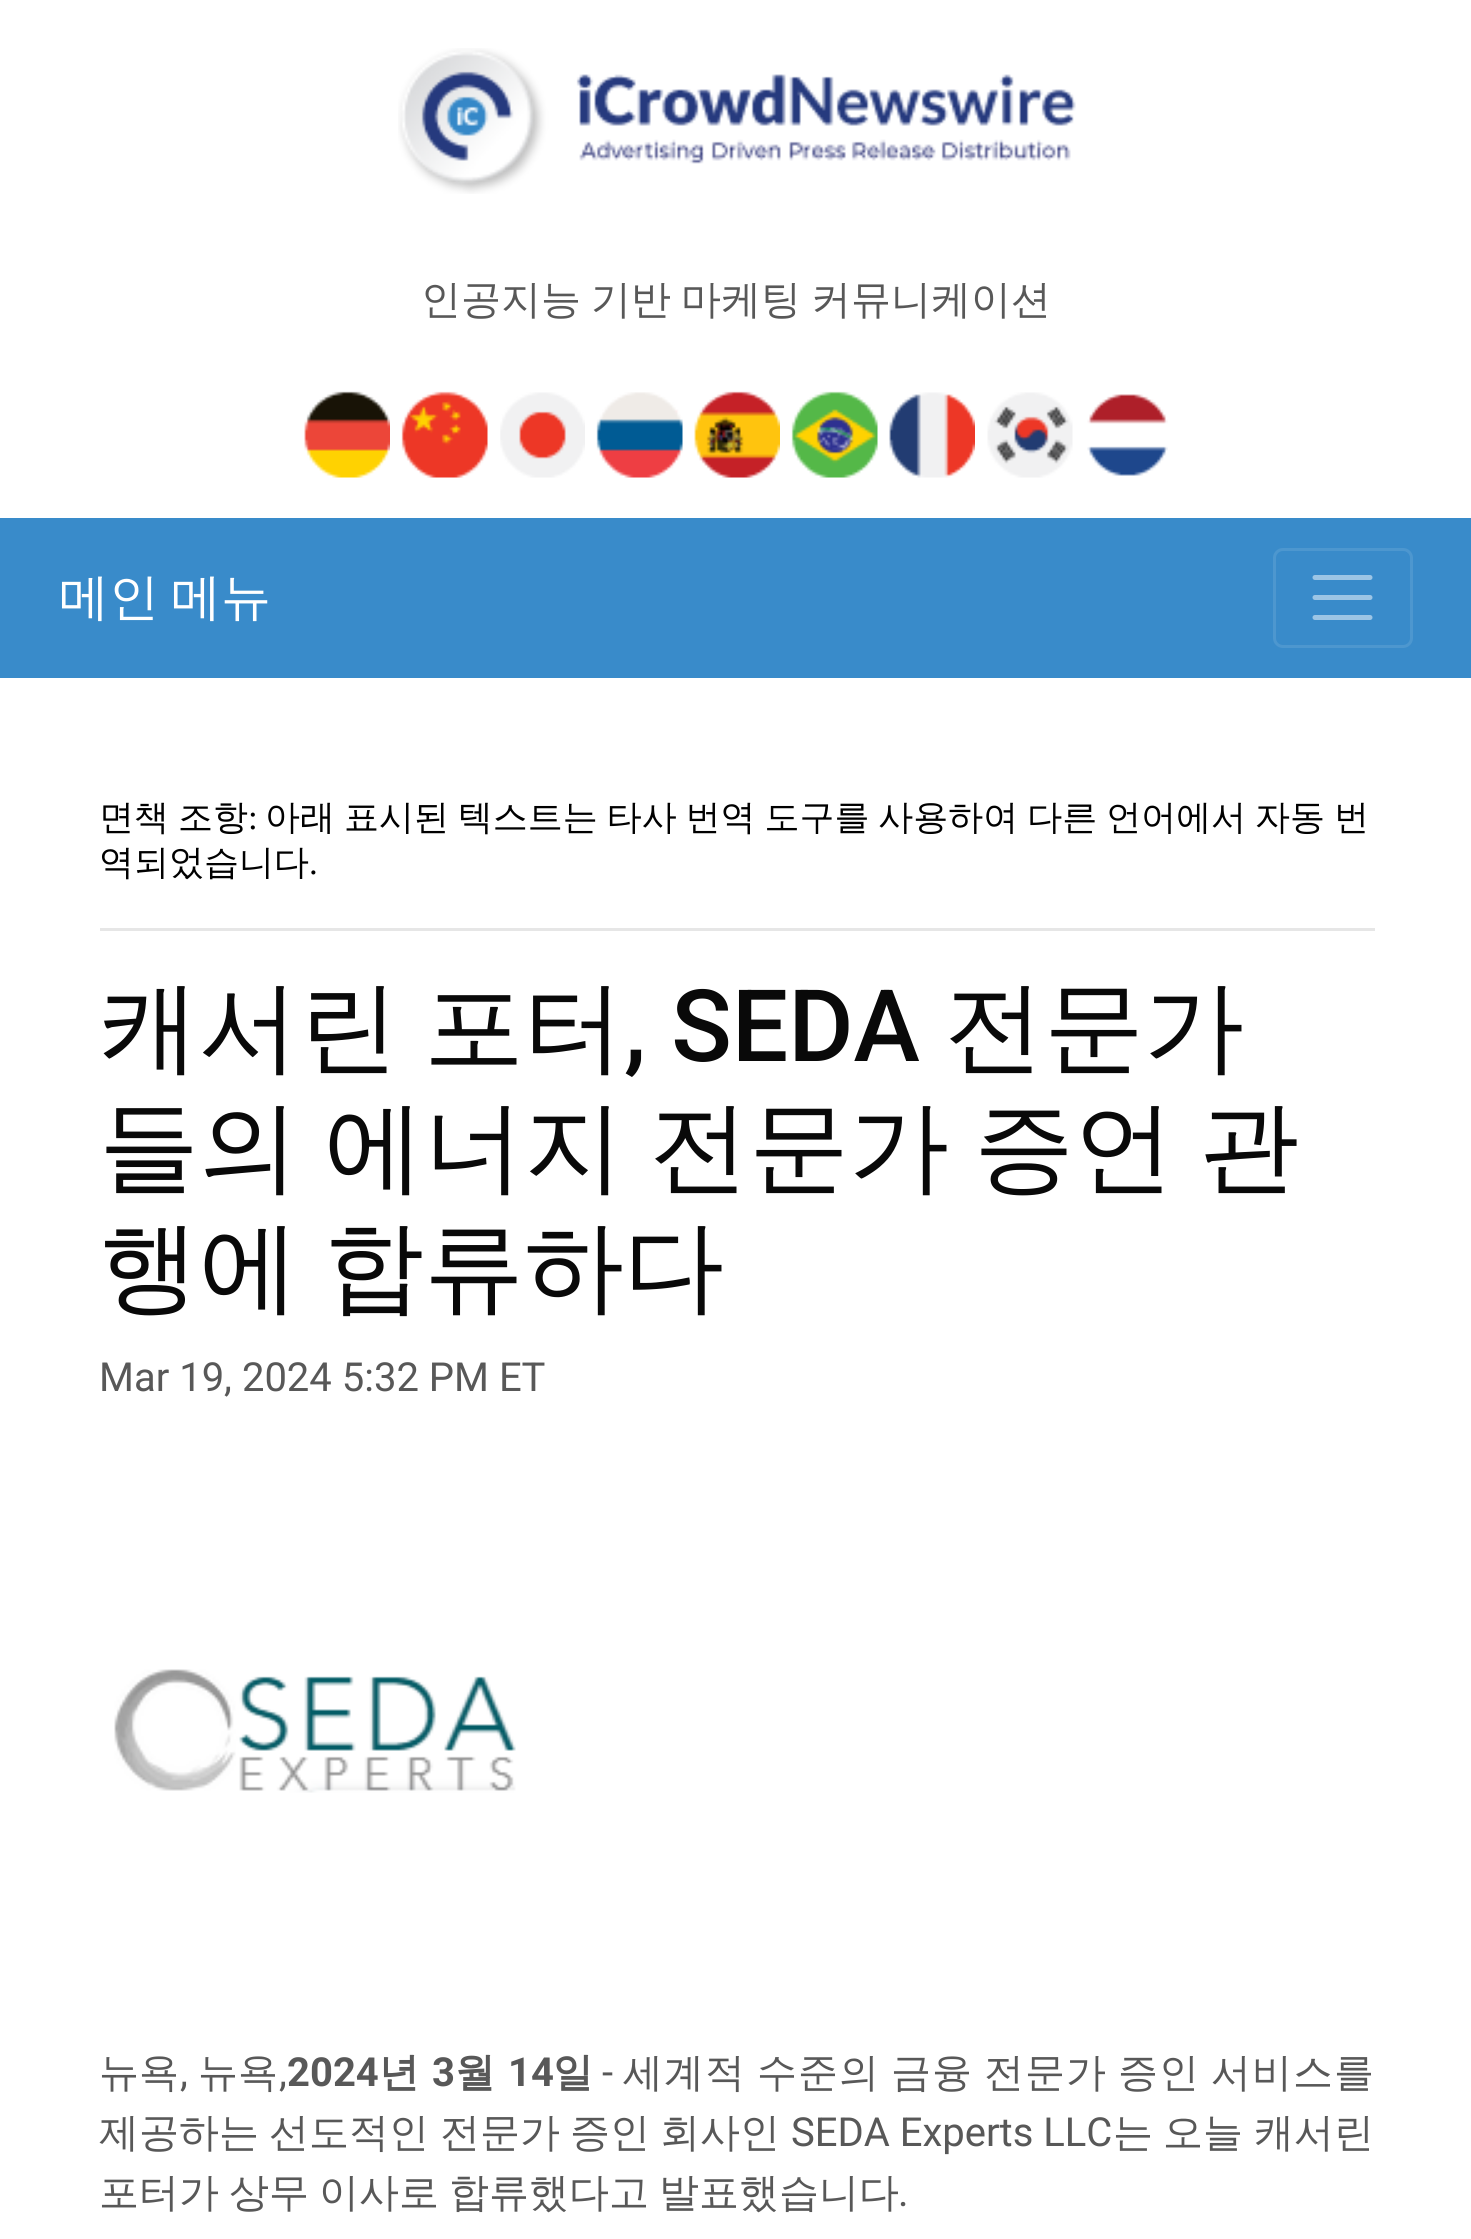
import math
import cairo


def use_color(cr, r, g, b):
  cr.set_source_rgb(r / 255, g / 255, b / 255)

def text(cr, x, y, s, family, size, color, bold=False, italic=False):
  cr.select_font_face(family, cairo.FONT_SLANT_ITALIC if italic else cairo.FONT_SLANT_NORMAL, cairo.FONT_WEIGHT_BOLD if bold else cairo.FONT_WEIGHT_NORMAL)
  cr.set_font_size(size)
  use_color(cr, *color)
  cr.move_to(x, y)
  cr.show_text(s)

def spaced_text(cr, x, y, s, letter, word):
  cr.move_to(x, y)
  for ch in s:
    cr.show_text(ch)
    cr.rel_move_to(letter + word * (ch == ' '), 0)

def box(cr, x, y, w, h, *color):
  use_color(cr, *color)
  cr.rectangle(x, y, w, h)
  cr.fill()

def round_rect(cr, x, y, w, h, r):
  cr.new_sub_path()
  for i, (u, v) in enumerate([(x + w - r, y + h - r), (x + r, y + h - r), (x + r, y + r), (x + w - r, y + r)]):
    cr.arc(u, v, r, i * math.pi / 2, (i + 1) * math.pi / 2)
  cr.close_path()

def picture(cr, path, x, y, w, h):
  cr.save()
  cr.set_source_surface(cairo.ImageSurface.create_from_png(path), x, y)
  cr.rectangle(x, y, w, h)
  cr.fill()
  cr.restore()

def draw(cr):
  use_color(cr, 255, 255, 255)
  cr.paint()
  picture(cr, "img_01.png", 398, 48, 678, 146)
  picture(cr, "img_02.png", 304, 391, 86, 87)
  picture(cr, "img_03.png", 401, 391, 87, 87)
  picture(cr, "img_04.png", 500, 392, 85, 86)
  picture(cr, "img_05.png", 596, 392, 87, 86)
  picture(cr, "img_06.png", 694, 391, 86, 87)
  picture(cr, "img_07.png", 791, 391, 87, 87)
  picture(cr, "img_08.png", 889, 392, 86, 86)
  picture(cr, "img_09.png", 987, 392, 86, 86)
  picture(cr, "img_10.png", 1087, 394, 81, 82)
  box(cr, 0, 518, 1471, 160, 57, 139, 202)
  round_rect(cr, 1274.5, 549.5, 137, 97, 8.5)
  use_color(cr, 77, 151, 207)
  cr.set_line_width(3)
  cr.stroke()
  cr.new_path()
  cr.move_to(1315, 577.5)
  cr.line_to(1370, 577.5)
  cr.move_to(1315, 597.5)
  cr.line_to(1370, 597.5)
  cr.move_to(1315, 617.5)
  cr.line_to(1370, 617.5)
  use_color(cr, 156, 197, 229)
  cr.set_line_width(5)
  cr.set_line_cap(cairo.LINE_CAP_ROUND)
  cr.stroke()
  box(cr, 100, 928, 1275, 3, 230, 230, 230)
  picture(cr, "img_11.png", 114, 1669, 402, 124)
  cr.select_font_face("WenQuanYi Zen Hei Medium")
  cr.set_font_size(40)
  use_color(cr, 88, 88, 88)
  spaced_text(cr, 421, 313, "인공지능 기반 마케팅 커뮤니케이션", 0, -2)
  cr.set_font_size(50)
  use_color(cr, 255, 255, 255)
  spaced_text(cr, 59, 614, "메인 메뉴", 0, -3)
  cr.set_font_size(35)
  use_color(cr, 0, 0, 0)
  spaced_text(cr, 99, 829, "면책 조항", 0, -1.6)
  text(cr, 248, 829, ":", "Liberation Serif", 35, (0, 0, 0))
  cr.select_font_face("WenQuanYi Zen Hei Medium")
  spaced_text(cr, 265, 829, "아래 표시된 텍스트는 타사 번역 도구를 사용하여 다른 언어에서 자동 번", 0, -1.6)
  text(cr, 99, 874, "역되었습니다", "WenQuanYi Zen Hei Medium", 35, (0, 0, 0))
  text(cr, 309, 874, ".", "Liberation Serif", 35, (0, 0, 0))
  text(cr, 99, 1061, "캐서린", "WenQuanYi Zen Hei Medium", 100, (9, 9, 9))
  text(cr, 424, 1061, "포터", "WenQuanYi Zen Hei Medium", 100, (9, 9, 9))
  text(cr, 624, 1061, ", SEDA", "Roboto Medium", 100, (9, 9, 9))
  text(cr, 944, 1061, "전문가", "WenQuanYi Zen Hei Medium", 100, (9, 9, 9))
  spaced_text(cr, 99, 1181, "들의 에너지 전문가 증언 관", 0, -5)
  spaced_text(cr, 99, 1301, "행에 합류하다", 0, -5)
  text(cr, 99, 1391, "Mar 19, 2024 5:32 PM ET", "Roboto", 40, (88, 88, 88))
  text(cr, 99, 2086, "뉴욕", "WenQuanYi Zen Hei Medium", 40, (88, 88, 88))
  text(cr, 198, 2086, "뉴욕", "WenQuanYi Zen Hei Medium", 40, (88, 88, 88))
  text(cr, 287, 2086, "2024", "Roboto", 40, (88, 88, 88), bold=True)
  text(cr, 379, 2086, "년", "WenQuanYi Zen Hei", 40, (88, 88, 88), bold=True)
  text(cr, 432, 2086, "3", "Roboto", 40, (88, 88, 88), bold=True)
  text(cr, 455, 2086, "월", "WenQuanYi Zen Hei", 40, (88, 88, 88), bold=True)
  text(cr, 508, 2086, "14", "Roboto", 40, (88, 88, 88), bold=True)
  text(cr, 553, 2086, "일", "WenQuanYi Zen Hei", 40, (88, 88, 88), bold=True)
  cr.select_font_face("Roboto")
  spaced_text(cr, 602, 2086, "-", 1, 0)
  cr.select_font_face("WenQuanYi Zen Hei Medium")
  spaced_text(cr, 623, 2086, "세계적 수준의 금융 전문가 증인 서비스를", 1, -2)
  text(cr, 180, 2086, ",", "Roboto", 40, (88, 88, 88))
  text(cr, 279, 2086, ",", "Roboto", 40, (88, 88, 88))
  text(cr, 99, 2146, "제공하는", "WenQuanYi Zen Hei Medium", 40, (88, 88, 88))
  text(cr, 269, 2146, "선도적인", "WenQuanYi Zen Hei Medium", 40, (88, 88, 88))
  text(cr, 440, 2146, "전문가", "WenQuanYi Zen Hei Medium", 40, (88, 88, 88))
  text(cr, 570, 2146, "증인", "WenQuanYi Zen Hei Medium", 40, (88, 88, 88))
  text(cr, 660, 2146, "회사인", "WenQuanYi Zen Hei Medium", 40, (88, 88, 88))
  text(cr, 791, 2146, "SEDA Experts LLC", "Roboto", 40, (88, 88, 88))
  text(cr, 1113, 2146, "는", "WenQuanYi Zen Hei Medium", 40, (88, 88, 88))
  text(cr, 1163, 2146, "오늘", "WenQuanYi Zen Hei Medium", 40, (88, 88, 88))
  text(cr, 1254, 2146, "캐서린", "WenQuanYi Zen Hei Medium", 40, (88, 88, 88))
  spaced_text(cr, 99, 2206, "포터가 상무 이사로 합류했다고 발표했습니다", 0, -2)
  text(cr, 898, 2206, ".", "Roboto", 40, (88, 88, 88))


surface = cairo.ImageSurface(cairo.FORMAT_RGB24, 1471, 2239)
cr = cairo.Context(surface)
options = cairo.FontOptions()
options.set_hint_metrics(cairo.HINT_METRICS_OFF)
options.set_hint_style(cairo.HINT_STYLE_NONE)
cr.set_font_options(options)
cr.set_miter_limit(4)
draw(cr)
surface.write_to_png("out.png")
